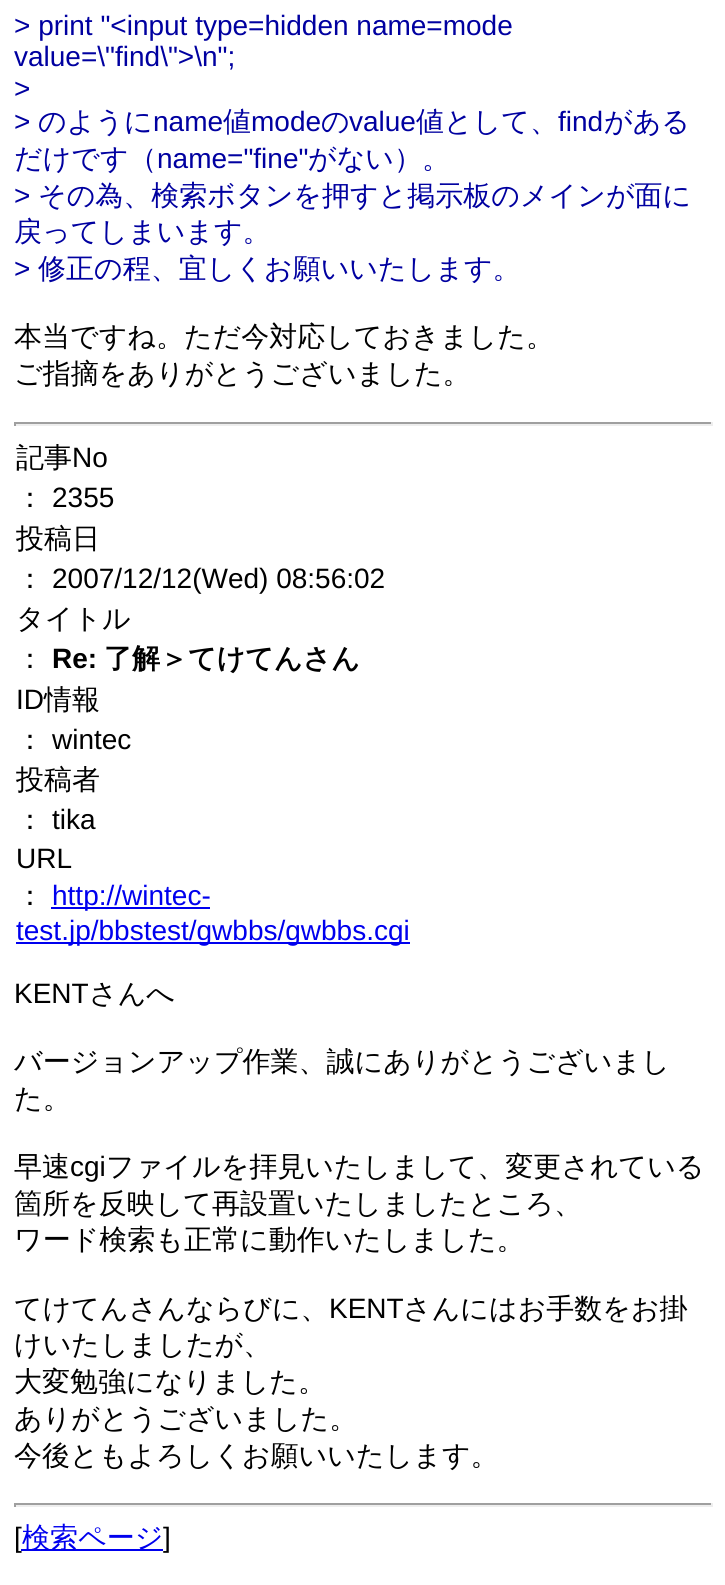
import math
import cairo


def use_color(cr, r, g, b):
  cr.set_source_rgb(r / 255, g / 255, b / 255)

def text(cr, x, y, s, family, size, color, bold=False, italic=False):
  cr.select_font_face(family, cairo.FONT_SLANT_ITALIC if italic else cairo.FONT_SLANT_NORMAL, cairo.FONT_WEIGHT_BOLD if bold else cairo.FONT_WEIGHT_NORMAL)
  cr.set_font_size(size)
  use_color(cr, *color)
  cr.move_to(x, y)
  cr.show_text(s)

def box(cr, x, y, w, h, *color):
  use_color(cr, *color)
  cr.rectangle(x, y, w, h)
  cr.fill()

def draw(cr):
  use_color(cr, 255, 255, 255)
  cr.paint()
  box(cr, 14, 422, 698, 2, 159, 159, 159)
  box(cr, 711, 422, 2, 4, 238, 238, 238)
  box(cr, 14, 424, 698, 2, 238, 238, 238)
  box(cr, 14, 422, 2, 4, 159, 159, 159)
  box(cr, 51, 907, 159, 2, 0, 0, 238)
  box(cr, 16, 942, 394, 2, 0, 0, 238)
  box(cr, 14, 1503, 698, 2, 159, 159, 159)
  box(cr, 711, 1503, 2, 4, 238, 238, 238)
  box(cr, 14, 1505, 698, 2, 238, 238, 238)
  box(cr, 14, 1503, 2, 4, 159, 159, 159)
  text(cr, 14, 35, "> print \"<input type=hidden name=mode", "Liberation Sans", 28, (0, 0, 160))
  text(cr, 14, 66, "value=\\\"find\\\">\\n\";", "Liberation Sans", 28, (0, 0, 160))
  text(cr, 14, 98, ">", "Liberation Sans", 28, (0, 0, 160))
  text(cr, 14, 131, ">", "Liberation Sans", 28, (0, 0, 160))
  text(cr, 38, 131, "のように", "WenQuanYi Zen Hei Medium", 28, (0, 0, 160))
  text(cr, 153, 131, "name", "Liberation Sans", 28, (0, 0, 160))
  text(cr, 223, 131, "値", "WenQuanYi Zen Hei Medium", 28, (0, 0, 160))
  text(cr, 251, 131, "mode", "Liberation Sans", 28, (0, 0, 160))
  text(cr, 321, 131, "の", "WenQuanYi Zen Hei Medium", 28, (0, 0, 160))
  text(cr, 349, 131, "value", "Liberation Sans", 28, (0, 0, 160))
  text(cr, 416, 131, "値として、", "WenQuanYi Zen Hei Medium", 28, (0, 0, 160))
  text(cr, 558, 131, "find", "Liberation Sans", 28, (0, 0, 160))
  text(cr, 604, 131, "がある", "WenQuanYi Zen Hei Medium", 28, (0, 0, 160))
  text(cr, 14, 168, "だけです（", "WenQuanYi Zen Hei Medium", 28, (0, 0, 160))
  text(cr, 157, 168, "name=\"fine\"", "Liberation Sans", 28, (0, 0, 160))
  text(cr, 308, 168, "がない）。", "WenQuanYi Zen Hei Medium", 28, (0, 0, 160))
  text(cr, 14, 205, ">", "Liberation Sans", 28, (0, 0, 160))
  text(cr, 38, 205, "その為、検索ボタンを押すと掲示板のメインが面に", "WenQuanYi Zen Hei Medium", 28, (0, 0, 160))
  text(cr, 14, 241, "戻ってしまいます。", "WenQuanYi Zen Hei Medium", 28, (0, 0, 160))
  text(cr, 14, 278, ">", "Liberation Sans", 28, (0, 0, 160))
  text(cr, 38, 278, "修正の程、宜しくお願いいたします。", "WenQuanYi Zen Hei Medium", 28, (0, 0, 160))
  text(cr, 14, 346, "本当ですね。ただ今対応しておきました。", "WenQuanYi Zen Hei Medium", 28, (0, 0, 0))
  text(cr, 14, 383, "ご指摘をありがとうございました。", "WenQuanYi Zen Hei Medium", 28, (0, 0, 0))
  text(cr, 16, 467, "記事", "WenQuanYi Zen Hei Medium", 28, (0, 0, 0))
  text(cr, 72, 467, "No", "Liberation Sans", 28, (0, 0, 0))
  text(cr, 16, 507, "：", "WenQuanYi Zen Hei Medium", 28, (0, 0, 0))
  text(cr, 52, 507, "2355", "Liberation Sans", 28, (0, 0, 0))
  text(cr, 16, 548, "投稿日", "WenQuanYi Zen Hei Medium", 28, (0, 0, 0))
  text(cr, 16, 588, "：", "WenQuanYi Zen Hei Medium", 28, (0, 0, 0))
  text(cr, 52, 588, "2007/12/12(Wed) 08:56:02", "Liberation Sans", 28, (0, 0, 0))
  text(cr, 16, 628, "タイトル", "WenQuanYi Zen Hei Medium", 28, (0, 0, 0))
  text(cr, 16, 668, "：", "WenQuanYi Zen Hei Medium", 28, (0, 0, 0))
  text(cr, 52, 668, "Re:", "Liberation Sans", 28, (0, 0, 0), bold=True)
  text(cr, 104, 668, "了解＞てけてんさん", "WenQuanYi Zen Hei", 28, (0, 0, 0), bold=True)
  text(cr, 16, 709, "ID", "Liberation Sans", 28, (0, 0, 0))
  text(cr, 44, 709, "情報", "WenQuanYi Zen Hei Medium", 28, (0, 0, 0))
  text(cr, 16, 749, "：", "WenQuanYi Zen Hei Medium", 28, (0, 0, 0))
  text(cr, 52, 749, "wintec", "Liberation Sans", 28, (0, 0, 0))
  text(cr, 16, 789, "投稿者", "WenQuanYi Zen Hei Medium", 28, (0, 0, 0))
  text(cr, 16, 829, "：", "WenQuanYi Zen Hei Medium", 28, (0, 0, 0))
  text(cr, 52, 829, "tika", "Liberation Sans", 28, (0, 0, 0))
  text(cr, 16, 868, "URL", "Liberation Sans", 28, (0, 0, 0))
  text(cr, 16, 905, "：", "WenQuanYi Zen Hei Medium", 28, (0, 0, 0))
  text(cr, 52, 905, "http://wintec-", "Liberation Sans", 28, (0, 0, 238))
  text(cr, 16, 940, "test.jp/bbstest/gwbbs/gwbbs.cgi", "Liberation Sans", 28, (0, 0, 238))
  text(cr, 14, 1003, "KENT", "Liberation Sans", 28, (0, 0, 0))
  text(cr, 89, 1003, "さんへ", "WenQuanYi Zen Hei Medium", 28, (0, 0, 0))
  text(cr, 14, 1071, "バージョンアップ作業、誠にありがとうございまし", "WenQuanYi Zen Hei Medium", 28, (0, 0, 0))
  text(cr, 14, 1108, "た。", "WenQuanYi Zen Hei Medium", 28, (0, 0, 0))
  text(cr, 14, 1176, "早速", "WenQuanYi Zen Hei Medium", 28, (0, 0, 0))
  text(cr, 70, 1176, "cgi", "Liberation Sans", 28, (0, 0, 0))
  text(cr, 106, 1176, "ファイルを拝見いたしまして、変更されている", "WenQuanYi Zen Hei Medium", 28, (0, 0, 0))
  text(cr, 14, 1213, "箇所を反映して再設置いたしましたところ、", "WenQuanYi Zen Hei Medium", 28, (0, 0, 0))
  text(cr, 14, 1249, "ワード検索も正常に動作いたしました。", "WenQuanYi Zen Hei Medium", 28, (0, 0, 0))
  text(cr, 14, 1318, "てけてんさんならびに、", "WenQuanYi Zen Hei Medium", 28, (0, 0, 0))
  text(cr, 329, 1318, "KENT", "Liberation Sans", 28, (0, 0, 0))
  text(cr, 403, 1318, "さんにはお手数をお掛", "WenQuanYi Zen Hei Medium", 28, (0, 0, 0))
  text(cr, 14, 1354, "けいたしましたが、", "WenQuanYi Zen Hei Medium", 28, (0, 0, 0))
  text(cr, 14, 1391, "大変勉強になりました。", "WenQuanYi Zen Hei Medium", 28, (0, 0, 0))
  text(cr, 14, 1428, "ありがとうございました。", "WenQuanYi Zen Hei Medium", 28, (0, 0, 0))
  text(cr, 14, 1465, "今後ともよろしくお願いいたします。", "WenQuanYi Zen Hei Medium", 28, (0, 0, 0))
  text(cr, 14, 1547, "[", "Liberation Sans", 28, (0, 0, 0))
  box(cr, 21, 1549, 142, 2, 0, 0, 238)
  text(cr, 22, 1547, "検索ページ", "WenQuanYi Zen Hei Medium", 28, (0, 0, 238))
  text(cr, 163, 1547, "]", "Liberation Sans", 28, (0, 0, 0))


surface = cairo.ImageSurface(cairo.FORMAT_RGB24, 725, 1585)
cr = cairo.Context(surface)
options = cairo.FontOptions()
options.set_hint_metrics(cairo.HINT_METRICS_OFF)
options.set_hint_style(cairo.HINT_STYLE_NONE)
cr.set_font_options(options)
cr.set_miter_limit(4)
draw(cr)
surface.write_to_png("out.png")
